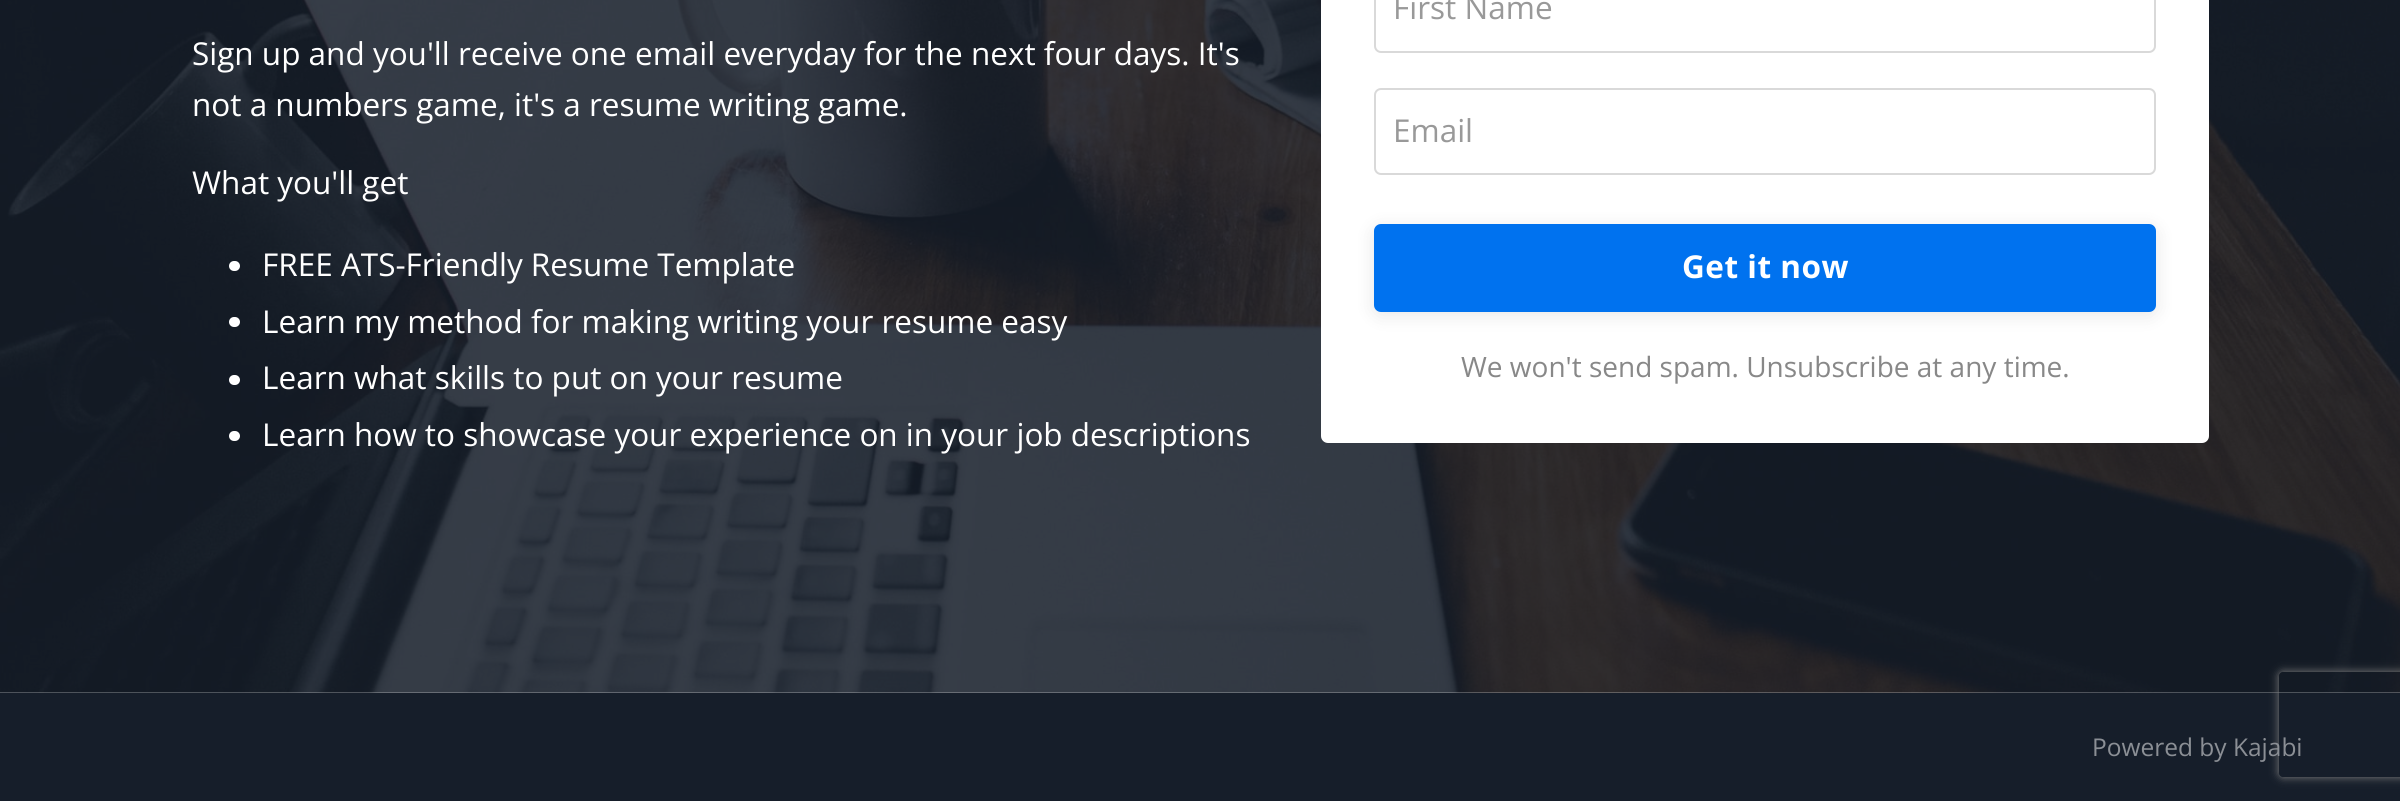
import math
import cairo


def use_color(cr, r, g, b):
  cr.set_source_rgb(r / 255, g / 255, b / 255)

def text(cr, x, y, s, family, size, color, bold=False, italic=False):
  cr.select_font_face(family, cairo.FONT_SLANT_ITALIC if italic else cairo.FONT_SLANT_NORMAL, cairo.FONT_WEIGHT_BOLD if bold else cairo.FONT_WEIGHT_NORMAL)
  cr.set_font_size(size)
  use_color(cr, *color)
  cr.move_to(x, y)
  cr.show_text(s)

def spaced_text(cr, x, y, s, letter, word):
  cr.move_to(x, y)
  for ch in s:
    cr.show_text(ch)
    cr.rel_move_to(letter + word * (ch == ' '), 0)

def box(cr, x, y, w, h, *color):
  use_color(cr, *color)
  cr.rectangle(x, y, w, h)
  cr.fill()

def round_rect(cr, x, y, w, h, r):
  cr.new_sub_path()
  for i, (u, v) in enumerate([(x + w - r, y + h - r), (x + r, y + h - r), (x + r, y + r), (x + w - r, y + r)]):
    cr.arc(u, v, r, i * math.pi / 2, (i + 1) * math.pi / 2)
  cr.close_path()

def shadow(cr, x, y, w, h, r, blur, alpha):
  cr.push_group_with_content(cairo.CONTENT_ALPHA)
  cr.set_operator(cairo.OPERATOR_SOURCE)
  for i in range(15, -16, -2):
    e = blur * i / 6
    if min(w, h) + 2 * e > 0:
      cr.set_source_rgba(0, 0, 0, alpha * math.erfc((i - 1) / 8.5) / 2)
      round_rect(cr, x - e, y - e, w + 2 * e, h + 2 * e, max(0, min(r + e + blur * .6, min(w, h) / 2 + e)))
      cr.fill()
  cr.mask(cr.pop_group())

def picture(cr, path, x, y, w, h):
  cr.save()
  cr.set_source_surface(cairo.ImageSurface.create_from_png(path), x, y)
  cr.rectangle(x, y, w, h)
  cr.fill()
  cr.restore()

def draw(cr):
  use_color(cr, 255, 255, 255)
  cr.paint()
  picture(cr, "img_01.png", 0, 0, 2400, 693)
  use_color(cr, 255, 255, 255)
  round_rect(cr, 229, 261, 11, 10, 5)
  cr.fill()
  round_rect(cr, 229, 317, 11, 10, 5)
  cr.fill()
  round_rect(cr, 229, 375, 11, 10, 5)
  cr.fill()
  round_rect(cr, 229, 431, 11, 10, 5)
  cr.fill()
  round_rect(cr, 1321, -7, 888, 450, 7)
  cr.fill()
  round_rect(cr, 1375, -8, 780, 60, 6)
  use_color(cr, 217, 217, 217)
  cr.stroke()
  round_rect(cr, 1375, 89, 780, 85, 6)
  cr.stroke()
  use_color(cr, 0, 0, 0)
  shadow(cr, 1374, 228, 782, 87, 7, 9, 0.1)
  use_color(cr, 0, 114, 239)
  round_rect(cr, 1376, 226, 778, 84, 5)
  cr.fill_preserve()
  cr.set_line_width(4)
  cr.stroke()
  box(cr, 0, 693, 2400, 108, 22, 30, 42)
  cr.save()
  cr.set_fill_rule(cairo.FILL_RULE_EVEN_ODD)
  cr.new_path()
  cr.move_to(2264, 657)
  cr.line_to(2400, 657)
  cr.line_to(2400, 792)
  cr.line_to(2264, 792)
  cr.close_path()
  cr.move_to(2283, 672)
  cr.line_to(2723, 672)
  cr.curve_to(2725, 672, 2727, 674, 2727, 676)
  cr.line_to(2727, 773)
  cr.curve_to(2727, 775, 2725, 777, 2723, 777)
  cr.line_to(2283, 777)
  cr.curve_to(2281, 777, 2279, 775, 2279, 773)
  cr.line_to(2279, 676)
  cr.curve_to(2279, 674, 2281, 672, 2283, 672)
  cr.close_path()
  cr.clip()
  use_color(cr, 128, 128, 128)
  shadow(cr, 2279, 672, 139, 105, 4, 4.5, 1)
  cr.restore()
  text(cr, 192, 65, "Sign up and you'll receive one email everyday for the next four days. It's", "Open Sans", 31.5, (255, 255, 255))
  text(cr, 192, 116, "not a numbers game, it's a resume writing game.", "Open Sans", 31.5, (255, 255, 255))
  text(cr, 192, 194, "What you'll get", "Open Sans", 31.5, (255, 255, 255))
  text(cr, 262, 276, "FREE ATS-Friendly Resume Template", "Open Sans", 31.5, (255, 255, 255))
  text(cr, 262, 333, "Learn my method for making writing your resume easy", "Open Sans", 31.5, (255, 255, 255))
  text(cr, 262, 389, "Learn what skills to put on your resume", "Open Sans", 31.5, (255, 255, 255))
  text(cr, 262, 446, "Learn how to showcase your experience on in your job descriptions", "Open Sans", 31.5, (255, 255, 255))
  text(cr, 1393, 19, "First Name", "Open Sans", 31.5, (153, 153, 153))
  text(cr, 1393, 142, "Email", "Open Sans", 31.5, (153, 153, 153))
  cr.select_font_face("Open Sans", cairo.FONT_SLANT_NORMAL, cairo.FONT_WEIGHT_BOLD)
  use_color(cr, 255, 255, 255)
  spaced_text(cr, 1682, 278, "Get it now", 0.5, 0)
  text(cr, 1461, 377, "We won't send spam. Unsubscribe at any time.", "Open Sans", 28, (136, 136, 136))
  text(cr, 2092, 756, "Powered by Kajabi", "Open Sans", 24.5, (139, 143, 149))


surface = cairo.ImageSurface(cairo.FORMAT_RGB24, 2400, 801)
cr = cairo.Context(surface)
options = cairo.FontOptions()
options.set_hint_metrics(cairo.HINT_METRICS_OFF)
options.set_hint_style(cairo.HINT_STYLE_NONE)
cr.set_font_options(options)
cr.set_miter_limit(4)
draw(cr)
surface.write_to_png("out.png")
